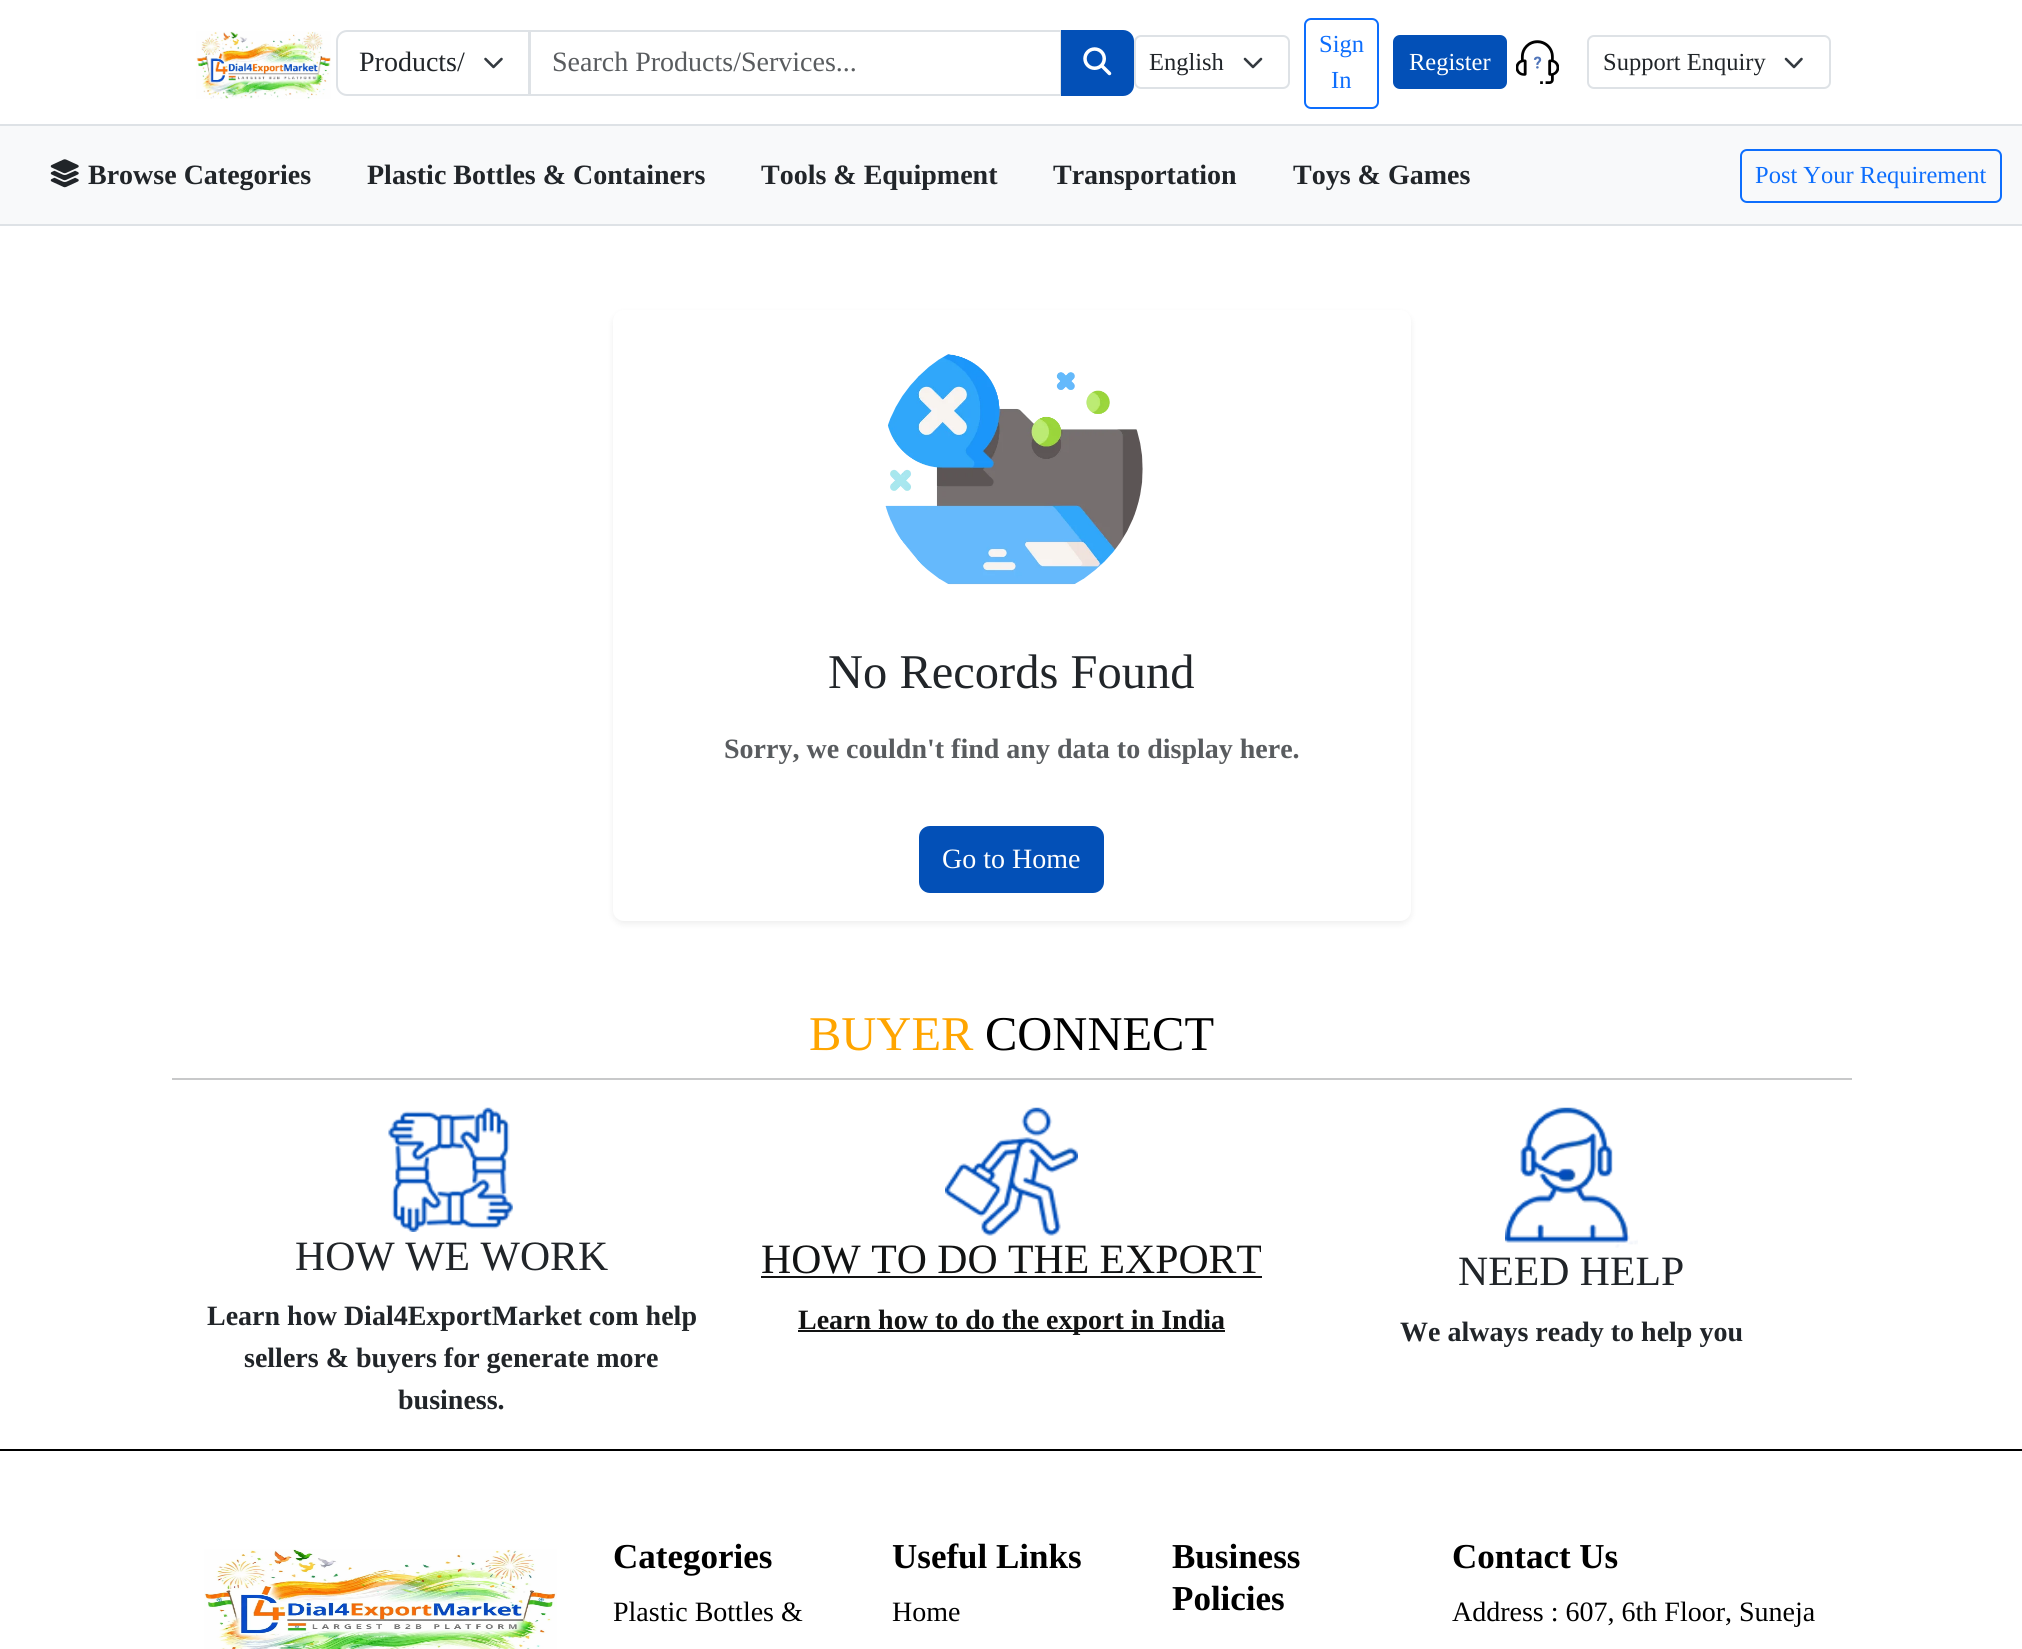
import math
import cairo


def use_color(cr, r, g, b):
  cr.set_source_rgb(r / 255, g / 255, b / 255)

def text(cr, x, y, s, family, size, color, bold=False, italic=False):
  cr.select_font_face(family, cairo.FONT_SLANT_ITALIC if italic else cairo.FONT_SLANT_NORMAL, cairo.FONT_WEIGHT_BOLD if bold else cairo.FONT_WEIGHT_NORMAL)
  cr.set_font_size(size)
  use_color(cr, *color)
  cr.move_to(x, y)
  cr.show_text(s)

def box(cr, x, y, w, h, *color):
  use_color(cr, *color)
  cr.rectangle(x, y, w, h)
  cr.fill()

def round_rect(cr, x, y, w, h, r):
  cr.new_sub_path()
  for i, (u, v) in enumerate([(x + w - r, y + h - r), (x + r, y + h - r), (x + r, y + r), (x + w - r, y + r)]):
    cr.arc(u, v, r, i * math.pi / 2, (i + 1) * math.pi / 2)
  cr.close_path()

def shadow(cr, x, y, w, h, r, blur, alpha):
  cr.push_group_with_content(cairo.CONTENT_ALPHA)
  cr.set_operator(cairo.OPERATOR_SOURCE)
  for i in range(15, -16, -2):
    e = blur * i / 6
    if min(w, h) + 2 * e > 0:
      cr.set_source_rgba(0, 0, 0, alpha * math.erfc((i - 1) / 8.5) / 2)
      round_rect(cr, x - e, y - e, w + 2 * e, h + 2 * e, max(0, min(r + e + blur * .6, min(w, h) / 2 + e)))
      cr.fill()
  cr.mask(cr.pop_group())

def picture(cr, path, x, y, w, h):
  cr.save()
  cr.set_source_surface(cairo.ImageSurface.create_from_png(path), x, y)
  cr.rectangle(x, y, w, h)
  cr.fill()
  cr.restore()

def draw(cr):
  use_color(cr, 255, 255, 255)
  cr.paint()
  box(cr, 0, 224, 2022, 2, 222, 226, 230)
  picture(cr, "img_01.png", 196, 31, 135, 68)
  cr.new_path()
  cr.move_to(485.5, 59)
  cr.line_to(493.5, 67)
  cr.line_to(501.5, 59)
  use_color(cr, 52, 58, 64)
  cr.set_line_width(2.6)
  cr.set_line_cap(cairo.LINE_CAP_ROUND)
  cr.set_line_join(cairo.LINE_JOIN_ROUND)
  cr.stroke()
  cr.new_path()
  cr.move_to(347, 31)
  cr.line_to(529, 31)
  cr.line_to(529, 95)
  cr.line_to(347, 95)
  cr.curve_to(341.5, 95, 337, 90.5, 337, 85)
  cr.line_to(337, 41)
  cr.curve_to(337, 35.5, 341.5, 31, 347, 31)
  cr.close_path()
  use_color(cr, 222, 226, 230)
  cr.set_line_width(2)
  cr.set_line_cap(cairo.LINE_CAP_BUTT)
  cr.set_line_join(cairo.LINE_JOIN_MITER)
  cr.stroke()
  cr.rectangle(530, 31, 531, 64)
  cr.stroke()
  use_color(cr, 3, 80, 183)
  cr.new_path()
  cr.move_to(1062, 31)
  cr.line_to(1123, 31)
  cr.curve_to(1128.5, 31, 1133, 35.5, 1133, 41)
  cr.line_to(1133, 85)
  cr.curve_to(1133, 90.5, 1128.5, 95, 1123, 95)
  cr.line_to(1062, 95)
  cr.close_path()
  cr.fill_preserve()
  cr.stroke()
  picture(cr, "img_02.png", 1083, 47, 29, 29)
  cr.new_path()
  cr.move_to(1245, 59)
  cr.line_to(1253, 67)
  cr.line_to(1261, 59)
  use_color(cr, 52, 58, 64)
  cr.set_line_width(2.6)
  cr.set_line_cap(cairo.LINE_CAP_ROUND)
  cr.set_line_join(cairo.LINE_JOIN_ROUND)
  cr.stroke()
  round_rect(cr, 1135, 36, 154, 52, 6)
  use_color(cr, 222, 226, 230)
  cr.set_line_width(2)
  cr.set_line_cap(cairo.LINE_CAP_BUTT)
  cr.set_line_join(cairo.LINE_JOIN_MITER)
  cr.stroke()
  round_rect(cr, 1305, 19, 73, 89, 6)
  use_color(cr, 13, 110, 253)
  cr.stroke()
  use_color(cr, 3, 80, 183)
  round_rect(cr, 1394, 36, 112, 52, 6)
  cr.fill_preserve()
  cr.stroke()
  picture(cr, "img_03.png", 1516, 40, 43, 44)
  cr.new_path()
  cr.move_to(1786, 59)
  cr.line_to(1794, 67)
  cr.line_to(1801.5, 59)
  use_color(cr, 52, 58, 64)
  cr.set_line_width(2.6)
  cr.set_line_cap(cairo.LINE_CAP_ROUND)
  cr.set_line_join(cairo.LINE_JOIN_ROUND)
  cr.stroke()
  round_rect(cr, 1588, 36, 242, 52, 6)
  use_color(cr, 222, 226, 230)
  cr.set_line_width(2)
  cr.set_line_cap(cairo.LINE_CAP_BUTT)
  cr.set_line_join(cairo.LINE_JOIN_MITER)
  cr.stroke()
  box(cr, 0, 126, 2022, 98, 248, 249, 250)
  box(cr, 0, 124, 2022, 2, 222, 226, 230)
  picture(cr, "img_04.png", 50, 159, 29, 29)
  round_rect(cr, 1741, 150, 260, 52, 6)
  use_color(cr, 13, 110, 253)
  cr.stroke()
  use_color(cr, 0, 0, 0)
  shadow(cr, 613, 313, 798, 611, 11, 3.5, 0.07)
  use_color(cr, 255, 255, 255)
  round_rect(cr, 613, 310, 798, 611, 11)
  cr.fill()
  picture(cr, "img_05.png", 885, 354, 258, 231)
  use_color(cr, 3, 80, 183)
  round_rect(cr, 920, 827, 183, 65, 10)
  cr.fill_preserve()
  cr.stroke()
  box(cr, 172, 1078, 1680, 2, 200, 201, 202)
  picture(cr, "img_06.png", 388, 1107, 125, 125)
  picture(cr, "img_07.png", 945, 1107, 133, 129)
  box(cr, 761, 1276, 501, 2, 18, 19, 19)
  box(cr, 798, 1330, 427, 2, 18, 19, 19)
  picture(cr, "img_08.png", 1505, 1107, 133, 141)
  box(cr, 0, 1449, 2022, 2, 0, 0, 0)
  picture(cr, "img_09.png", 204, 1549, 353, 100)
  text(cr, 359, 71, "Products/", "Liberation Serif", 28, (33, 37, 41))
  text(cr, 552, 71, "Search Products/Services...", "Liberation Serif", 28, (89, 92, 95))
  text(cr, 1149, 70, "English", "Liberation Serif", 24.5, (33, 37, 41))
  text(cr, 1319, 52, "Sign", "Liberation Serif", 24.5, (13, 110, 253))
  text(cr, 1331, 88, "In", "Liberation Serif", 24.5, (13, 110, 253))
  text(cr, 1409, 70, "Register", "Liberation Serif", 24.5, (255, 255, 255))
  text(cr, 1603, 70, "Support Enquiry", "Liberation Serif", 24.5, (33, 37, 41))
  text(cr, 88, 184, "Browse Categories", "Liberation Serif", 28, (33, 37, 41), bold=True)
  text(cr, 367, 184, "Plastic Bottles & Containers", "Liberation Serif", 28, (33, 37, 41), bold=True)
  text(cr, 761, 184, "Tools & Equipment", "Liberation Serif", 28, (33, 37, 41), bold=True)
  text(cr, 1053, 184, "Transportation", "Liberation Serif", 28, (33, 37, 41), bold=True)
  text(cr, 1293, 184, "Toys & Games", "Liberation Serif", 28, (33, 37, 41), bold=True)
  text(cr, 1755, 183, "Post Your Requirement", "Liberation Serif", 24.5, (13, 110, 253))
  text(cr, 828, 688, "No Records Found", "Liberation Serif", 48.5, (33, 37, 41))
  text(cr, 724, 758, "Sorry, we couldn't find any data to display here.", "Liberation Serif", 28, (89, 92, 95), bold=True)
  text(cr, 942, 868, "Go to Home", "Liberation Serif", 28, (255, 255, 255))
  text(cr, 809, 1050, "BUYER", "Liberation Serif", 48.5, (255, 165, 0))
  text(cr, 985, 1050, "CONNECT", "Liberation Serif", 48.5, (0, 0, 0))
  text(cr, 295, 1270, "HOW WE WORK", "Liberation Serif", 41.75, (33, 37, 41))
  text(cr, 207, 1325, "Learn how Dial4ExportMarket com help", "Liberation Serif", 28, (33, 37, 41), bold=True)
  text(cr, 244, 1367, "sellers & buyers for generate more", "Liberation Serif", 28, (33, 37, 41), bold=True)
  text(cr, 398, 1409, "business.", "Liberation Serif", 28, (33, 37, 41), bold=True)
  text(cr, 761, 1273, "HOW TO DO THE EXPORT", "Liberation Serif", 41.75, (18, 19, 19))
  text(cr, 798, 1329, "Learn how to do the export in India", "Liberation Serif", 28, (18, 19, 19), bold=True)
  text(cr, 1458, 1285, "NEED HELP", "Liberation Serif", 41.75, (33, 37, 41))
  text(cr, 1400, 1341, "We always ready to help you", "Liberation Serif", 28, (33, 37, 41), bold=True)
  text(cr, 613, 1568, "Categories", "Liberation Serif", 35, (0, 0, 0), bold=True)
  text(cr, 613, 1621, "Plastic Bottles &", "Liberation Serif", 28, (0, 0, 0))
  text(cr, 892, 1568, "Useful Links", "Liberation Serif", 35, (0, 0, 0), bold=True)
  text(cr, 892, 1621, "Home", "Liberation Serif", 28, (0, 0, 0))
  text(cr, 1172, 1568, "Business", "Liberation Serif", 35, (0, 0, 0), bold=True)
  text(cr, 1172, 1610, "Policies", "Liberation Serif", 35, (0, 0, 0), bold=True)
  text(cr, 1452, 1568, "Contact Us", "Liberation Serif", 35, (0, 0, 0), bold=True)
  text(cr, 1452, 1621, "Address : 607, 6th Floor, Suneja", "Liberation Serif", 28, (0, 0, 0))


surface = cairo.ImageSurface(cairo.FORMAT_RGB24, 2022, 1649)
cr = cairo.Context(surface)
options = cairo.FontOptions()
options.set_hint_metrics(cairo.HINT_METRICS_OFF)
options.set_hint_style(cairo.HINT_STYLE_NONE)
cr.set_font_options(options)
cr.set_miter_limit(4)
draw(cr)
surface.write_to_png("out.png")
